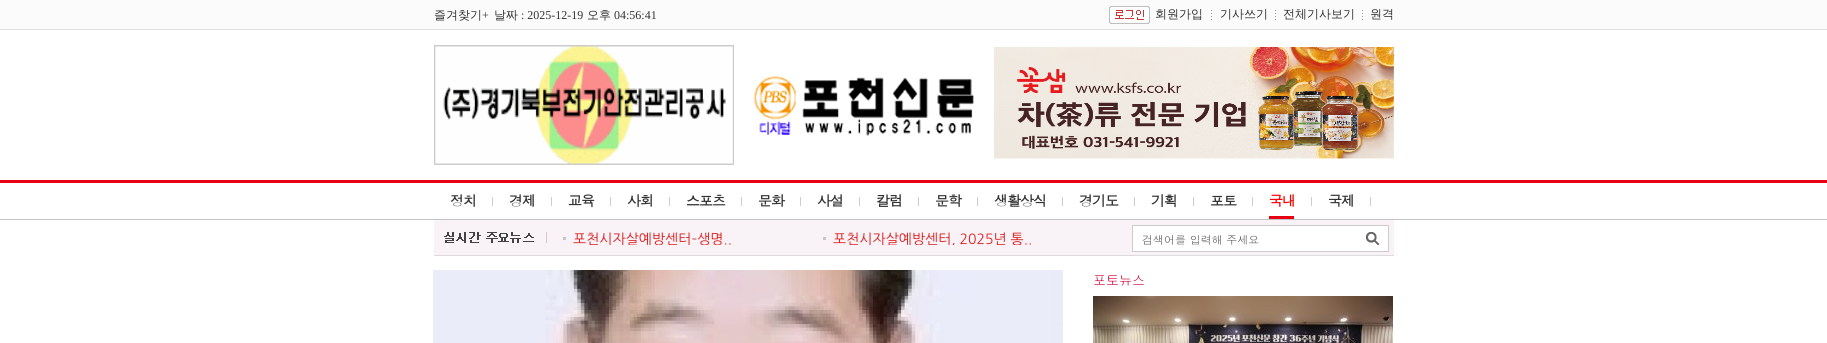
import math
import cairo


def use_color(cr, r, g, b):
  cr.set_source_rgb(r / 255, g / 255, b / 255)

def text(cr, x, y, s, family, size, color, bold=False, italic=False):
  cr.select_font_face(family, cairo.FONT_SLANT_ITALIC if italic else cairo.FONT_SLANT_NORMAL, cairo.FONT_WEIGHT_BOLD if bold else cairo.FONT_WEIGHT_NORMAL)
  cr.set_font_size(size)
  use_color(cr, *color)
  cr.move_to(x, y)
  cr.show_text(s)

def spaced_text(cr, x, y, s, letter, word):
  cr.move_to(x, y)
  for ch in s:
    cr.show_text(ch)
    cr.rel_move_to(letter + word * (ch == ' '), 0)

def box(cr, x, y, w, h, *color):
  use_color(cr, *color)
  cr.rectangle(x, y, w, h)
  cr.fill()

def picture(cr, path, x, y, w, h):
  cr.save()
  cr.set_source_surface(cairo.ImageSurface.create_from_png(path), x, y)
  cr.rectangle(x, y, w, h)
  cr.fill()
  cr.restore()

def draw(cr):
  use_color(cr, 255, 255, 255)
  cr.paint()
  box(cr, 0, 0, 1827, 29, 251, 251, 251)
  box(cr, 0, 29, 1827, 1, 223, 223, 223)
  picture(cr, "img_01.png", 1109, 6, 41, 18)
  picture(cr, "img_02.png", 1211, 10, 1, 10)
  picture(cr, "img_02.png", 1275, 10, 1, 10)
  picture(cr, "img_02.png", 1362, 10, 1, 10)
  picture(cr, "img_03.png", 434, 45, 300, 120)
  picture(cr, "img_04.png", 754, 76, 220, 60)
  picture(cr, "img_05.png", 994, 47, 400, 112)
  box(cr, 0, 180, 1827, 3, 233, 0, 19)
  box(cr, 0, 219, 1827, 1, 194, 195, 197)
  box(cr, 492, 197, 1, 9, 206, 206, 206)
  box(cr, 551, 197, 1, 9, 206, 206, 206)
  box(cr, 610, 197, 1, 9, 206, 206, 206)
  box(cr, 669, 197, 1, 9, 206, 206, 206)
  box(cr, 741, 197, 1, 9, 206, 206, 206)
  box(cr, 800, 197, 1, 9, 206, 206, 206)
  box(cr, 859, 197, 1, 9, 206, 206, 206)
  box(cr, 918, 197, 1, 9, 206, 206, 206)
  box(cr, 977, 197, 1, 9, 206, 206, 206)
  box(cr, 1062, 197, 1, 9, 206, 206, 206)
  box(cr, 1134, 197, 1, 9, 206, 206, 206)
  box(cr, 1193, 197, 1, 9, 206, 206, 206)
  box(cr, 1252, 197, 1, 9, 206, 206, 206)
  box(cr, 1269, 216, 25, 3, 233, 0, 19)
  box(cr, 1311, 197, 1, 9, 206, 206, 206)
  box(cr, 1370, 197, 1, 9, 206, 206, 206)
  box(cr, 434, 220, 960, 35, 249, 242, 247)
  box(cr, 434, 255, 960, 1, 219, 219, 219)
  picture(cr, "img_06.png", 444, 232, 103, 11)
  box(cr, 563, 237, 3, 3, 197, 197, 197)
  box(cr, 823, 237, 3, 3, 197, 197, 197)
  use_color(cr, 255, 255, 255)
  cr.rectangle(1132.5, 225.5, 256, 26)
  cr.fill_preserve()
  use_color(cr, 204, 204, 204)
  cr.set_line_width(1)
  cr.stroke()
  picture(cr, "img_07.png", 1366, 232, 13, 13)
  picture(cr, "img_08.png", 433, 270, 630, 73)
  picture(cr, "img_09.png", 1093, 296, 300, 47)
  text(cr, 434, 19, "즐겨찾기", "WenQuanYi Zen Hei Medium", 12, (51, 51, 51))
  text(cr, 482, 19, "+", "Liberation Serif", 12, (51, 51, 51))
  text(cr, 494, 19, "날짜", "WenQuanYi Zen Hei Medium", 12, (51, 51, 51))
  text(cr, 521, 19, ": 2025-12-19", "Liberation Serif", 12, (51, 51, 51))
  text(cr, 587, 19, "오후", "WenQuanYi Zen Hei Medium", 12, (51, 51, 51))
  text(cr, 614, 19, "04:56:41", "Liberation Serif", 12, (51, 51, 51))
  text(cr, 1155, 18, "회원가입", "WenQuanYi Zen Hei Medium", 12, (51, 51, 51))
  text(cr, 1220, 18, "기사쓰기", "WenQuanYi Zen Hei Medium", 12, (51, 51, 51))
  text(cr, 1283, 18, "전체기사보기", "WenQuanYi Zen Hei Medium", 12, (51, 51, 51))
  text(cr, 1370, 18, "원격", "WenQuanYi Zen Hei Medium", 12, (51, 51, 51))
  cr.select_font_face("Dotum", cairo.FONT_SLANT_NORMAL, cairo.FONT_WEIGHT_BOLD)
  cr.set_font_size(14)
  spaced_text(cr, 450, 206, "정치", -1, 0)
  spaced_text(cr, 509, 206, "경제", -1, 0)
  spaced_text(cr, 568, 206, "교육", -1, 0)
  spaced_text(cr, 627, 206, "사회", -1, 0)
  spaced_text(cr, 686, 206, "스포츠", -1, 0)
  spaced_text(cr, 758, 206, "문화", -1, 0)
  spaced_text(cr, 817, 206, "사설", -1, 0)
  spaced_text(cr, 876, 206, "칼럼", -1, 0)
  spaced_text(cr, 935, 206, "문학", -1, 0)
  spaced_text(cr, 994, 206, "생활상식", -1, 0)
  spaced_text(cr, 1079, 206, "경기도", -1, 0)
  spaced_text(cr, 1151, 206, "기획", -1, 0)
  spaced_text(cr, 1210, 206, "포토", -1, 0)
  use_color(cr, 255, 0, 0)
  spaced_text(cr, 1269, 206, "국내", -1, 0)
  use_color(cr, 51, 51, 51)
  spaced_text(cr, 1328, 206, "국제", -1, 0)
  cr.save()
  cr.rectangle(556, 230, 510, 15)
  cr.clip()
  text(cr, 573, 244, "포천시자살예방센터–생명..", "NanumGothic", 14, (219, 25, 24))
  text(cr, 833, 244, "포천시자살예방센터, 2025년 통..", "NanumGothic", 14, (219, 25, 24))
  cr.restore()
  text(cr, 1142, 244, "검색어를 입력해 주세요", "Dotum", 11, (102, 102, 102))
  text(cr, 1093, 285, "포토뉴스", "Gulim", 13, (204, 0, 51))


surface = cairo.ImageSurface(cairo.FORMAT_RGB24, 1827, 343)
cr = cairo.Context(surface)
options = cairo.FontOptions()
options.set_hint_metrics(cairo.HINT_METRICS_OFF)
options.set_hint_style(cairo.HINT_STYLE_NONE)
cr.set_font_options(options)
cr.set_miter_limit(4)
draw(cr)
surface.write_to_png("out.png")
